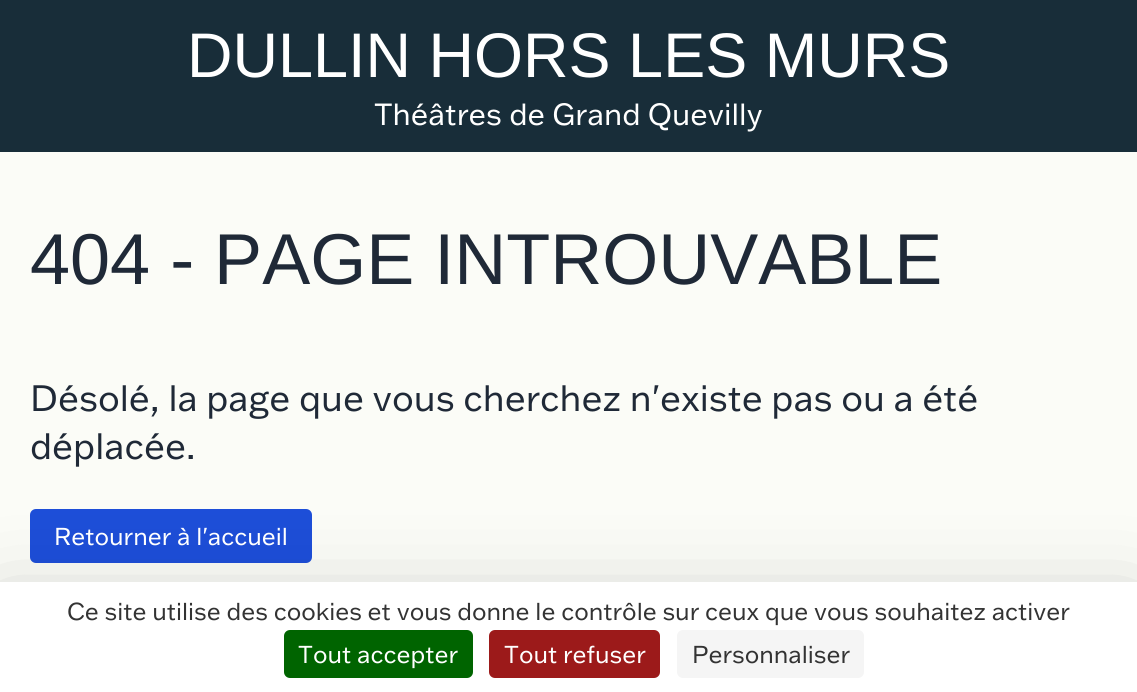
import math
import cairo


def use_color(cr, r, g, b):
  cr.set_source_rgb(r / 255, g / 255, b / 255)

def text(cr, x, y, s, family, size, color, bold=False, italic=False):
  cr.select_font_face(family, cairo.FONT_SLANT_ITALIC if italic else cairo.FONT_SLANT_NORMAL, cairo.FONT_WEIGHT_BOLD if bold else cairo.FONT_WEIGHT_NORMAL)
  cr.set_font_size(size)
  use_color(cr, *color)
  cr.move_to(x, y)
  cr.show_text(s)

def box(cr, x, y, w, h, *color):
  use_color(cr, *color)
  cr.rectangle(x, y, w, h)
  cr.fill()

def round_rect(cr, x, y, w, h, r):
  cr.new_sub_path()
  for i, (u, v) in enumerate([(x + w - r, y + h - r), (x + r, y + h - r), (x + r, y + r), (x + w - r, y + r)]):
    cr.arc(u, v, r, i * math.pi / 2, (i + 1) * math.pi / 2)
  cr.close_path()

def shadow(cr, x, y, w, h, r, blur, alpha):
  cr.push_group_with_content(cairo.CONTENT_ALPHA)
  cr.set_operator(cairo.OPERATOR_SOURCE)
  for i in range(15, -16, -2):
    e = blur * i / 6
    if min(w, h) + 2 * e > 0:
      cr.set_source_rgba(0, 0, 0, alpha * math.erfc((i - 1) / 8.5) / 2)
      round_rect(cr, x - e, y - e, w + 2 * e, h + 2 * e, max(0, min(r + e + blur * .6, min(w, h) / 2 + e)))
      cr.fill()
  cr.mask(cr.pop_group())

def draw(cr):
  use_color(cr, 251, 252, 247)
  cr.paint()
  box(cr, 0, 0, 1137, 152, 24, 45, 57)
  use_color(cr, 29, 78, 216)
  round_rect(cr, 30, 509, 282, 54, 6)
  cr.fill()
  use_color(cr, 0, 0, 0)
  shadow(cr, 0, 612, 1137, 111, 0, 45, 0.25)
  box(cr, 0, 582, 1137, 110, 255, 255, 255)
  use_color(cr, 0, 100, 0)
  round_rect(cr, 284, 630, 189, 48, 6)
  cr.fill()
  use_color(cr, 156, 26, 26)
  round_rect(cr, 489, 630, 171, 48, 6)
  cr.fill()
  use_color(cr, 245, 245, 245)
  round_rect(cr, 677, 630, 187, 48, 6)
  cr.fill()
  text(cr, 187, 77, "DULLIN HORS LES MURS", "Liberation Sans", 63, (255, 255, 255))
  text(cr, 374, 125, "Théâtres de Grand Quevilly", "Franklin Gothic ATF", 30, (255, 255, 255))
  text(cr, 30, 284, "404 - PAGE INTROUVABLE", "Liberation Sans", 72, (31, 41, 55))
  text(cr, 30, 411, "Désolé, la page que vous cherchez n'existe pas ou a été", "Franklin Gothic ATF", 36, (31, 41, 55))
  text(cr, 30, 459, "déplacée.", "Franklin Gothic ATF", 36, (31, 41, 55))
  text(cr, 54, 545, "Retourner à l'accueil", "Franklin Gothic ATF", 24, (255, 255, 255))
  text(cr, 67, 620, "Ce site utilise des cookies et vous donne le contrôle sur ceux que vous souhaitez activer", "Franklin Gothic ATF", 24, (51, 51, 51))
  text(cr, 298, 663, "Tout accepter", "Franklin Gothic ATF", 24, (255, 255, 255))
  text(cr, 504, 663, "Tout refuser", "Franklin Gothic ATF", 24, (255, 255, 255))
  text(cr, 692, 663, "Personnaliser", "Franklin Gothic ATF", 24, (51, 51, 51))


surface = cairo.ImageSurface(cairo.FORMAT_RGB24, 1137, 692)
cr = cairo.Context(surface)
options = cairo.FontOptions()
options.set_hint_metrics(cairo.HINT_METRICS_OFF)
options.set_hint_style(cairo.HINT_STYLE_NONE)
cr.set_font_options(options)
cr.set_miter_limit(4)
draw(cr)
surface.write_to_png("out.png")
